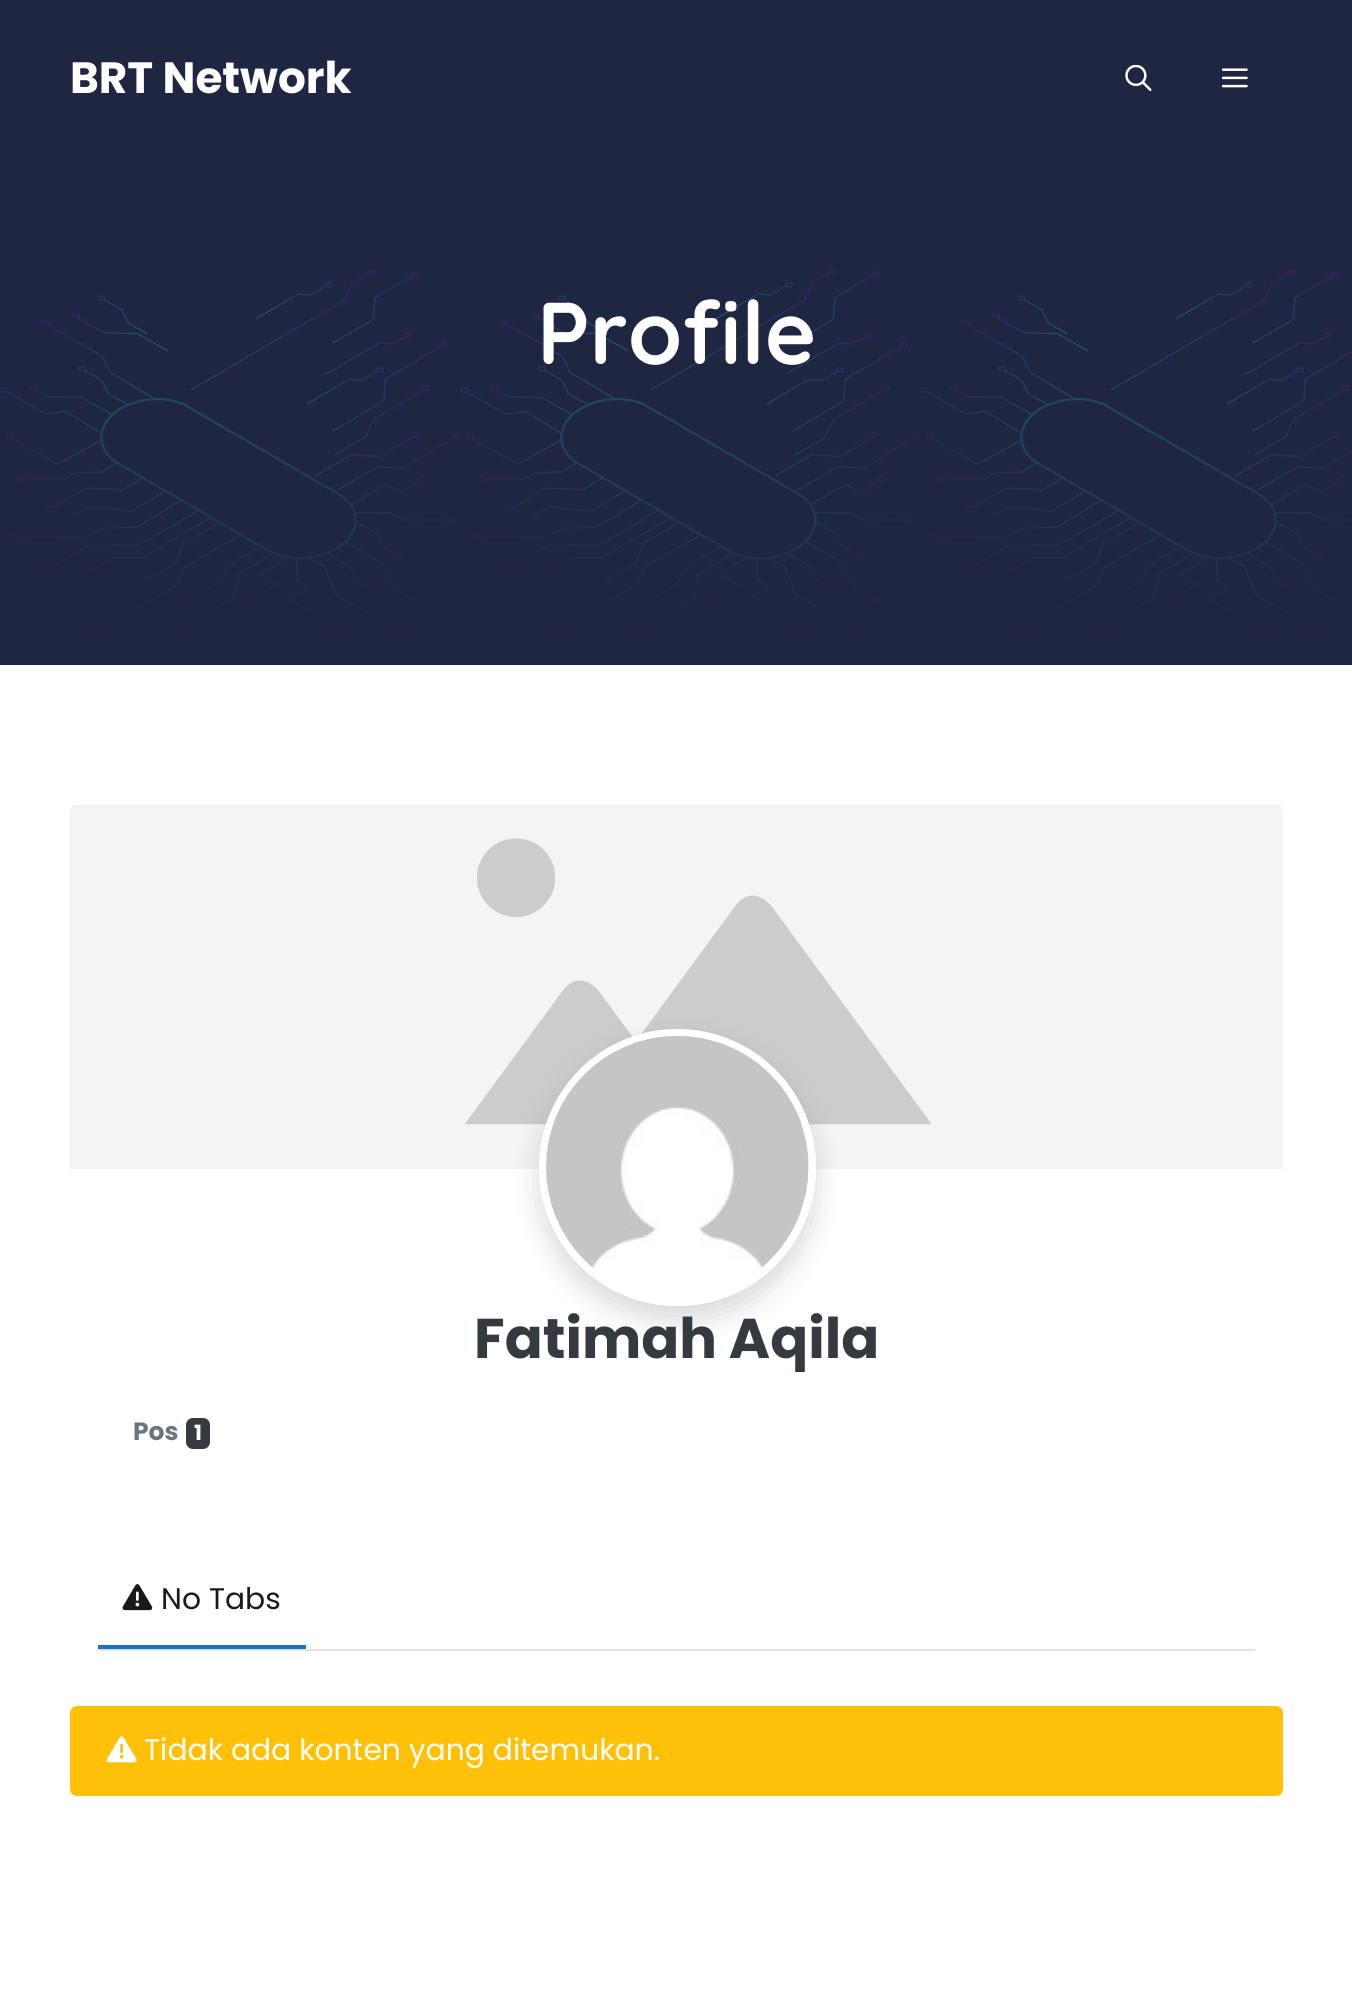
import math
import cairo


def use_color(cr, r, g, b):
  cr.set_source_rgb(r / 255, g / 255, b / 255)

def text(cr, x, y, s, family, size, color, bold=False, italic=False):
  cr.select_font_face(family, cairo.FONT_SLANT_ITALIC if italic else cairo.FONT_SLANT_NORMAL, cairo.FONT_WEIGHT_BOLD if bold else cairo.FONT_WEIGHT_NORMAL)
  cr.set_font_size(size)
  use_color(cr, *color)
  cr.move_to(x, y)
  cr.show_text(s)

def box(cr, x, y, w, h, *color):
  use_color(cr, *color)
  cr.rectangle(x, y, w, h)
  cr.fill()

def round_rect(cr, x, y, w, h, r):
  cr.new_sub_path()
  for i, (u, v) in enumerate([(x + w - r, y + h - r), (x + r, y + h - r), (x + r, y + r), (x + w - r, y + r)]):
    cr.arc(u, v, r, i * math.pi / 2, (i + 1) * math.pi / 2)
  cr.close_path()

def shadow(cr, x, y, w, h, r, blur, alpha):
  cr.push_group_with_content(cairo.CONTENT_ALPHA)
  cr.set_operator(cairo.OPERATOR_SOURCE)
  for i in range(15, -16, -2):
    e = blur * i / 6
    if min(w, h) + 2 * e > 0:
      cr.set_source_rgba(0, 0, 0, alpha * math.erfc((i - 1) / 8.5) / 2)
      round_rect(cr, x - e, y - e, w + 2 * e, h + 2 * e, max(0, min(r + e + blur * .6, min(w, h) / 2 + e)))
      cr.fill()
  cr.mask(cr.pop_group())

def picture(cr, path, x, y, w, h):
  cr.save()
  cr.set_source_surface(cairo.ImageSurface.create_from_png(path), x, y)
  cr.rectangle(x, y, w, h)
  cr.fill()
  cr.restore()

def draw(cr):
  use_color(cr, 255, 255, 255)
  cr.paint()
  box(cr, 0, 0, 1352, 663, 31, 38, 65)
  picture(cr, "img_01.png", 1125, 65, 27, 26)
  picture(cr, "img_02.png", 1222, 68, 26, 20)
  picture(cr, "img_03.png", 0, 269, 1352, 370)
  gradient = cairo.LinearGradient(676, 0, 676, 665)
  gradient.add_color_stop_rgba(0.5, 0.122, 0.149, 0.255, 0)
  gradient.add_color_stop_rgba(1, 0.122, 0.149, 0.255, 1)
  cr.set_source(gradient)
  cr.rectangle(0, 355, 1352, 310)
  cr.fill()
  picture(cr, "img_04.png", 70, 805, 1213, 364)
  cr.save()
  cr.set_fill_rule(cairo.FILL_RULE_EVEN_ODD)
  cr.new_path()
  cr.move_to(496, 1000)
  cr.line_to(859, 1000)
  cr.line_to(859, 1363)
  cr.line_to(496, 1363)
  cr.close_path()
  cr.move_to(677.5, 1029)
  cr.curve_to(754, 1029, 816, 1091, 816, 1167.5)
  cr.curve_to(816, 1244, 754, 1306, 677.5, 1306)
  cr.curve_to(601, 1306, 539, 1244, 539, 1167.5)
  cr.curve_to(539, 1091, 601, 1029, 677.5, 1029)
  cr.close_path()
  cr.clip()
  use_color(cr, 0, 0, 0)
  shadow(cr, 539, 1043, 277, 277, 138.5, 14, 0.15)
  cr.restore()
  cr.arc(677.5, 1167.5, 135, 0, 2 * math.pi)
  use_color(cr, 255, 255, 255)
  cr.set_line_width(7)
  cr.stroke()
  picture(cr, "img_05.png", 546, 1036, 263, 234)
  use_color(cr, 52, 58, 64)
  round_rect(cr, 186, 1418, 24, 31, 7)
  cr.fill()
  box(cr, 98, 1649, 1157, 2, 222, 226, 230)
  box(cr, 98, 1645, 208, 4, 30, 115, 190)
  picture(cr, "img_06.png", 122, 1584, 31, 27)
  use_color(cr, 255, 193, 7)
  round_rect(cr, 71, 1707, 1211, 88, 6)
  cr.fill_preserve()
  cr.set_line_width(2)
  cr.stroke()
  picture(cr, "img_07.png", 106, 1736, 31, 27)
  text(cr, 70, 93, "BRT Network", "Poppins", 43.75, (255, 255, 255), bold=True)
  text(cr, 537, 364, "Profile", "Quicksand", 87.5, (255, 255, 255), bold=True)
  text(cr, 474, 1358, "Fatimah Aqila", "Poppins", 56, (52, 58, 64), bold=True)
  box(cr, 794, 1372, 11, 1, 255, 255, 255)
  text(cr, 133, 1440, "Pos", "Poppins", 25, (108, 117, 125), bold=True)
  text(cr, 194, 1440, "1", "Poppins", 21, (255, 255, 255), bold=True)
  text(cr, 161, 1609, "No Tabs", "Poppins", 29.75, (26, 26, 26))
  text(cr, 144, 1760, "Tidak ada konten yang ditemukan.", "Poppins", 29.75, (255, 255, 255))


surface = cairo.ImageSurface(cairo.FORMAT_RGB24, 1352, 2009)
cr = cairo.Context(surface)
options = cairo.FontOptions()
options.set_hint_metrics(cairo.HINT_METRICS_OFF)
options.set_hint_style(cairo.HINT_STYLE_NONE)
cr.set_font_options(options)
cr.set_miter_limit(4)
draw(cr)
surface.write_to_png("out.png")
